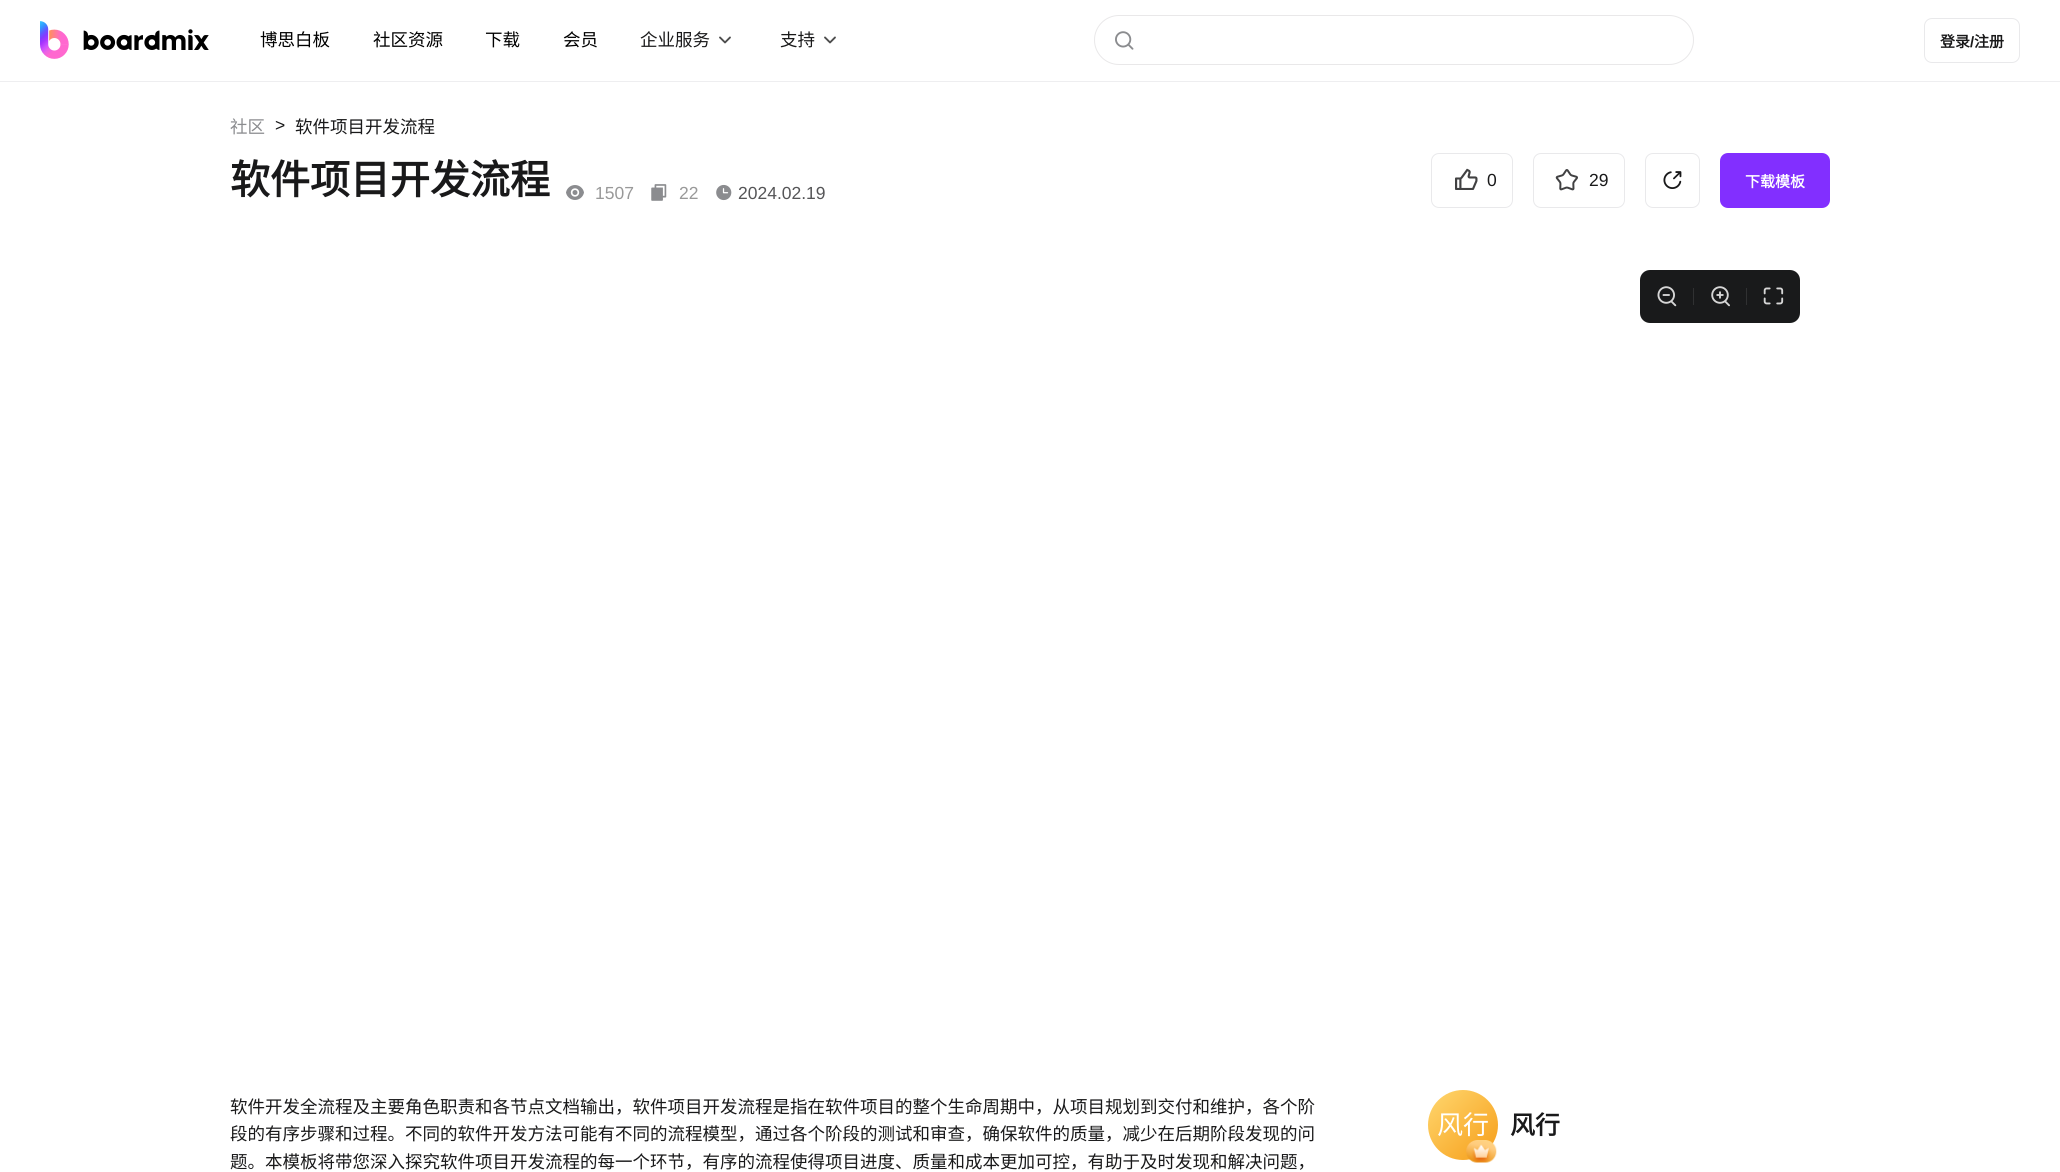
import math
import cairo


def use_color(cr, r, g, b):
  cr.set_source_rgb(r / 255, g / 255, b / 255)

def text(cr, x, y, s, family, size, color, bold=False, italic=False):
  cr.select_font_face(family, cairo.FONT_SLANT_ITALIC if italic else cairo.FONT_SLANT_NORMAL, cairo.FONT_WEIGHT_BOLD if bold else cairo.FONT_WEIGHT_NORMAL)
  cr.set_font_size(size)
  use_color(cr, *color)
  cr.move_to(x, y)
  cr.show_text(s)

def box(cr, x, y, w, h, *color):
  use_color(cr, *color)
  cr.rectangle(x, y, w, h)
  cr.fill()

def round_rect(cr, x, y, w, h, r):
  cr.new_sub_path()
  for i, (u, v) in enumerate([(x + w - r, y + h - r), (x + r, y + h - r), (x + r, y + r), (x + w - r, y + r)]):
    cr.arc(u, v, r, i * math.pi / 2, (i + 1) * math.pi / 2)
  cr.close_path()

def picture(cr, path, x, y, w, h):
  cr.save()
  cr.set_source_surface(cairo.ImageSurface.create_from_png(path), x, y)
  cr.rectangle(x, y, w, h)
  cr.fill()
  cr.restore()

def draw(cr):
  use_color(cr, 255, 255, 255)
  cr.paint()
  box(cr, 0, 81, 2060, 1, 238, 238, 240)
  box(cr, 20, 81, 2020, 1, 255, 255, 255)
  box(cr, 20, 81, 2020, 1, 238, 238, 240)
  picture(cr, "img_01.png", 40, 21, 169, 38)
  picture(cr, "img_02.png", 719, 36, 12, 8)
  picture(cr, "img_02.png", 824, 36, 12, 8)
  round_rect(cr, 1094.5, 15.5, 599, 49, 24.5)
  use_color(cr, 233, 232, 233)
  cr.set_line_width(1)
  cr.stroke()
  picture(cr, "img_03.png", 1115, 31, 19, 19)
  round_rect(cr, 1924.5, 18.5, 95, 44, 7.5)
  use_color(cr, 233, 233, 235)
  cr.stroke()
  picture(cr, "img_04.png", 566, 185, 18, 15)
  picture(cr, "img_05.png", 651, 184, 16, 17)
  picture(cr, "img_06.png", 716, 184, 16, 17)
  round_rect(cr, 1431.5, 153.5, 81, 54, 7.5)
  cr.stroke()
  picture(cr, "img_07.png", 1455, 168, 23, 22)
  round_rect(cr, 1533.5, 153.5, 91, 54, 7.5)
  cr.stroke()
  picture(cr, "img_08.png", 1555, 169, 23, 22)
  round_rect(cr, 1645.5, 153.5, 54, 54, 7.5)
  cr.stroke()
  picture(cr, "img_09.png", 1663, 171, 19, 18)
  use_color(cr, 130, 47, 255)
  round_rect(cr, 1720, 153, 110, 55, 8)
  cr.fill()
  use_color(cr, 25, 26, 27)
  round_rect(cr, 1640, 270, 160, 53, 10)
  cr.fill()
  picture(cr, "img_10.png", 1657, 286, 20, 21)
  box(cr, 1693, 288, 1, 17, 48, 49, 50)
  picture(cr, "img_11.png", 1711, 286, 19, 21)
  box(cr, 1746, 288, 1, 17, 48, 49, 50)
  picture(cr, "img_12.png", 1763, 287, 21, 18)
  gradient = cairo.LinearGradient(1428, 1090, 1498, 1160)
  gradient.add_color_stop_rgba(0, 1, 0.843, 0.435, 1)
  gradient.add_color_stop_rgba(1, 0.965, 0.616, 0.094, 1)
  cr.set_source(gradient)
  cr.arc(1463, 1125, 35, 0, 2 * math.pi)
  cr.fill()
  picture(cr, "img_13.png", 1466, 1140, 31, 23)
  text(cr, 260, 46, "博思白板", "Noto Sans CJK SC", 17.5, (0, 0, 0))
  text(cr, 373, 46, "社区资源", "Noto Sans CJK SC", 17.5, (0, 0, 0))
  text(cr, 485, 46, "下载", "Noto Sans CJK SC", 17.5, (0, 0, 0))
  text(cr, 563, 46, "会员", "Noto Sans CJK SC", 17.5, (0, 0, 0))
  text(cr, 640, 46, "企业服务", "Noto Sans CJK SC", 17.5, (25, 25, 26))
  text(cr, 780, 46, "支持", "Noto Sans CJK SC", 17.5, (25, 25, 26))
  text(cr, 1940, 47, "登录", "Noto Sans CJK SC", 15, (25, 25, 26), bold=True)
  text(cr, 1970, 47, "/", "Liberation Sans", 15, (25, 25, 26), bold=True)
  text(cr, 1974, 47, "注册", "Noto Sans CJK SC", 15, (25, 25, 26), bold=True)
  text(cr, 230, 133, "社区", "Noto Sans CJK SC", 17.5, (139, 140, 143))
  text(cr, 275, 131, ">", "Liberation Sans", 17.5, (25, 25, 26))
  text(cr, 295, 133, "软件项目开发流程", "Noto Sans CJK SC", 17.5, (25, 25, 26))
  text(cr, 230, 194, "软件项目开发流程", "Noto Sans CJK SC", 40, (25, 25, 26), bold=True)
  text(cr, 595, 199, "1507", "Liberation Sans", 17.5, (153, 153, 153))
  text(cr, 679, 199, "22", "Liberation Sans", 17.5, (153, 153, 153))
  text(cr, 738, 199, "2024.02.19", "Liberation Sans", 17.5, (85, 85, 87))
  text(cr, 1487, 186, "0", "Liberation Sans", 17.5, (25, 25, 26))
  text(cr, 1589, 186, "29", "Liberation Sans", 17.5, (25, 25, 26))
  text(cr, 1745, 187, "下载模板", "Noto Sans CJK SC", 15, (255, 255, 255), bold=True)
  text(cr, 230, 1113, "软件开发全流程及主要角色职责和各节点文档输出，软件项目开发流程是指在软件项目的整个生命周期中，从项目规划到交付和维护，各个阶", "Noto Sans CJK SC", 17.5, (25, 25, 26))
  text(cr, 230, 1140, "段的有序步骤和过程。不同的软件开发方法可能有不同的流程模型，通过各个阶段的测试和审查，确保软件的质量，减少在后期阶段发现的问", "Noto Sans CJK SC", 17.5, (25, 25, 26))
  text(cr, 230, 1168, "题。本模板将带您深入探究软件项目开发流程的每一个环节，有序的流程使得项目进度、质量和成本更加可控，有助于及时发现和解决问题，", "Noto Sans CJK SC", 17.5, (25, 25, 26))
  text(cr, 1437, 1134, "风行", "Noto Sans CJK SC", 26, (255, 255, 255))
  text(cr, 1510, 1134, "风行", "Noto Sans CJK SC", 25, (25, 25, 26), bold=True)


surface = cairo.ImageSurface(cairo.FORMAT_RGB24, 2060, 1172)
cr = cairo.Context(surface)
options = cairo.FontOptions()
options.set_hint_metrics(cairo.HINT_METRICS_OFF)
options.set_hint_style(cairo.HINT_STYLE_NONE)
cr.set_font_options(options)
cr.set_miter_limit(4)
draw(cr)
surface.write_to_png("out.png")
